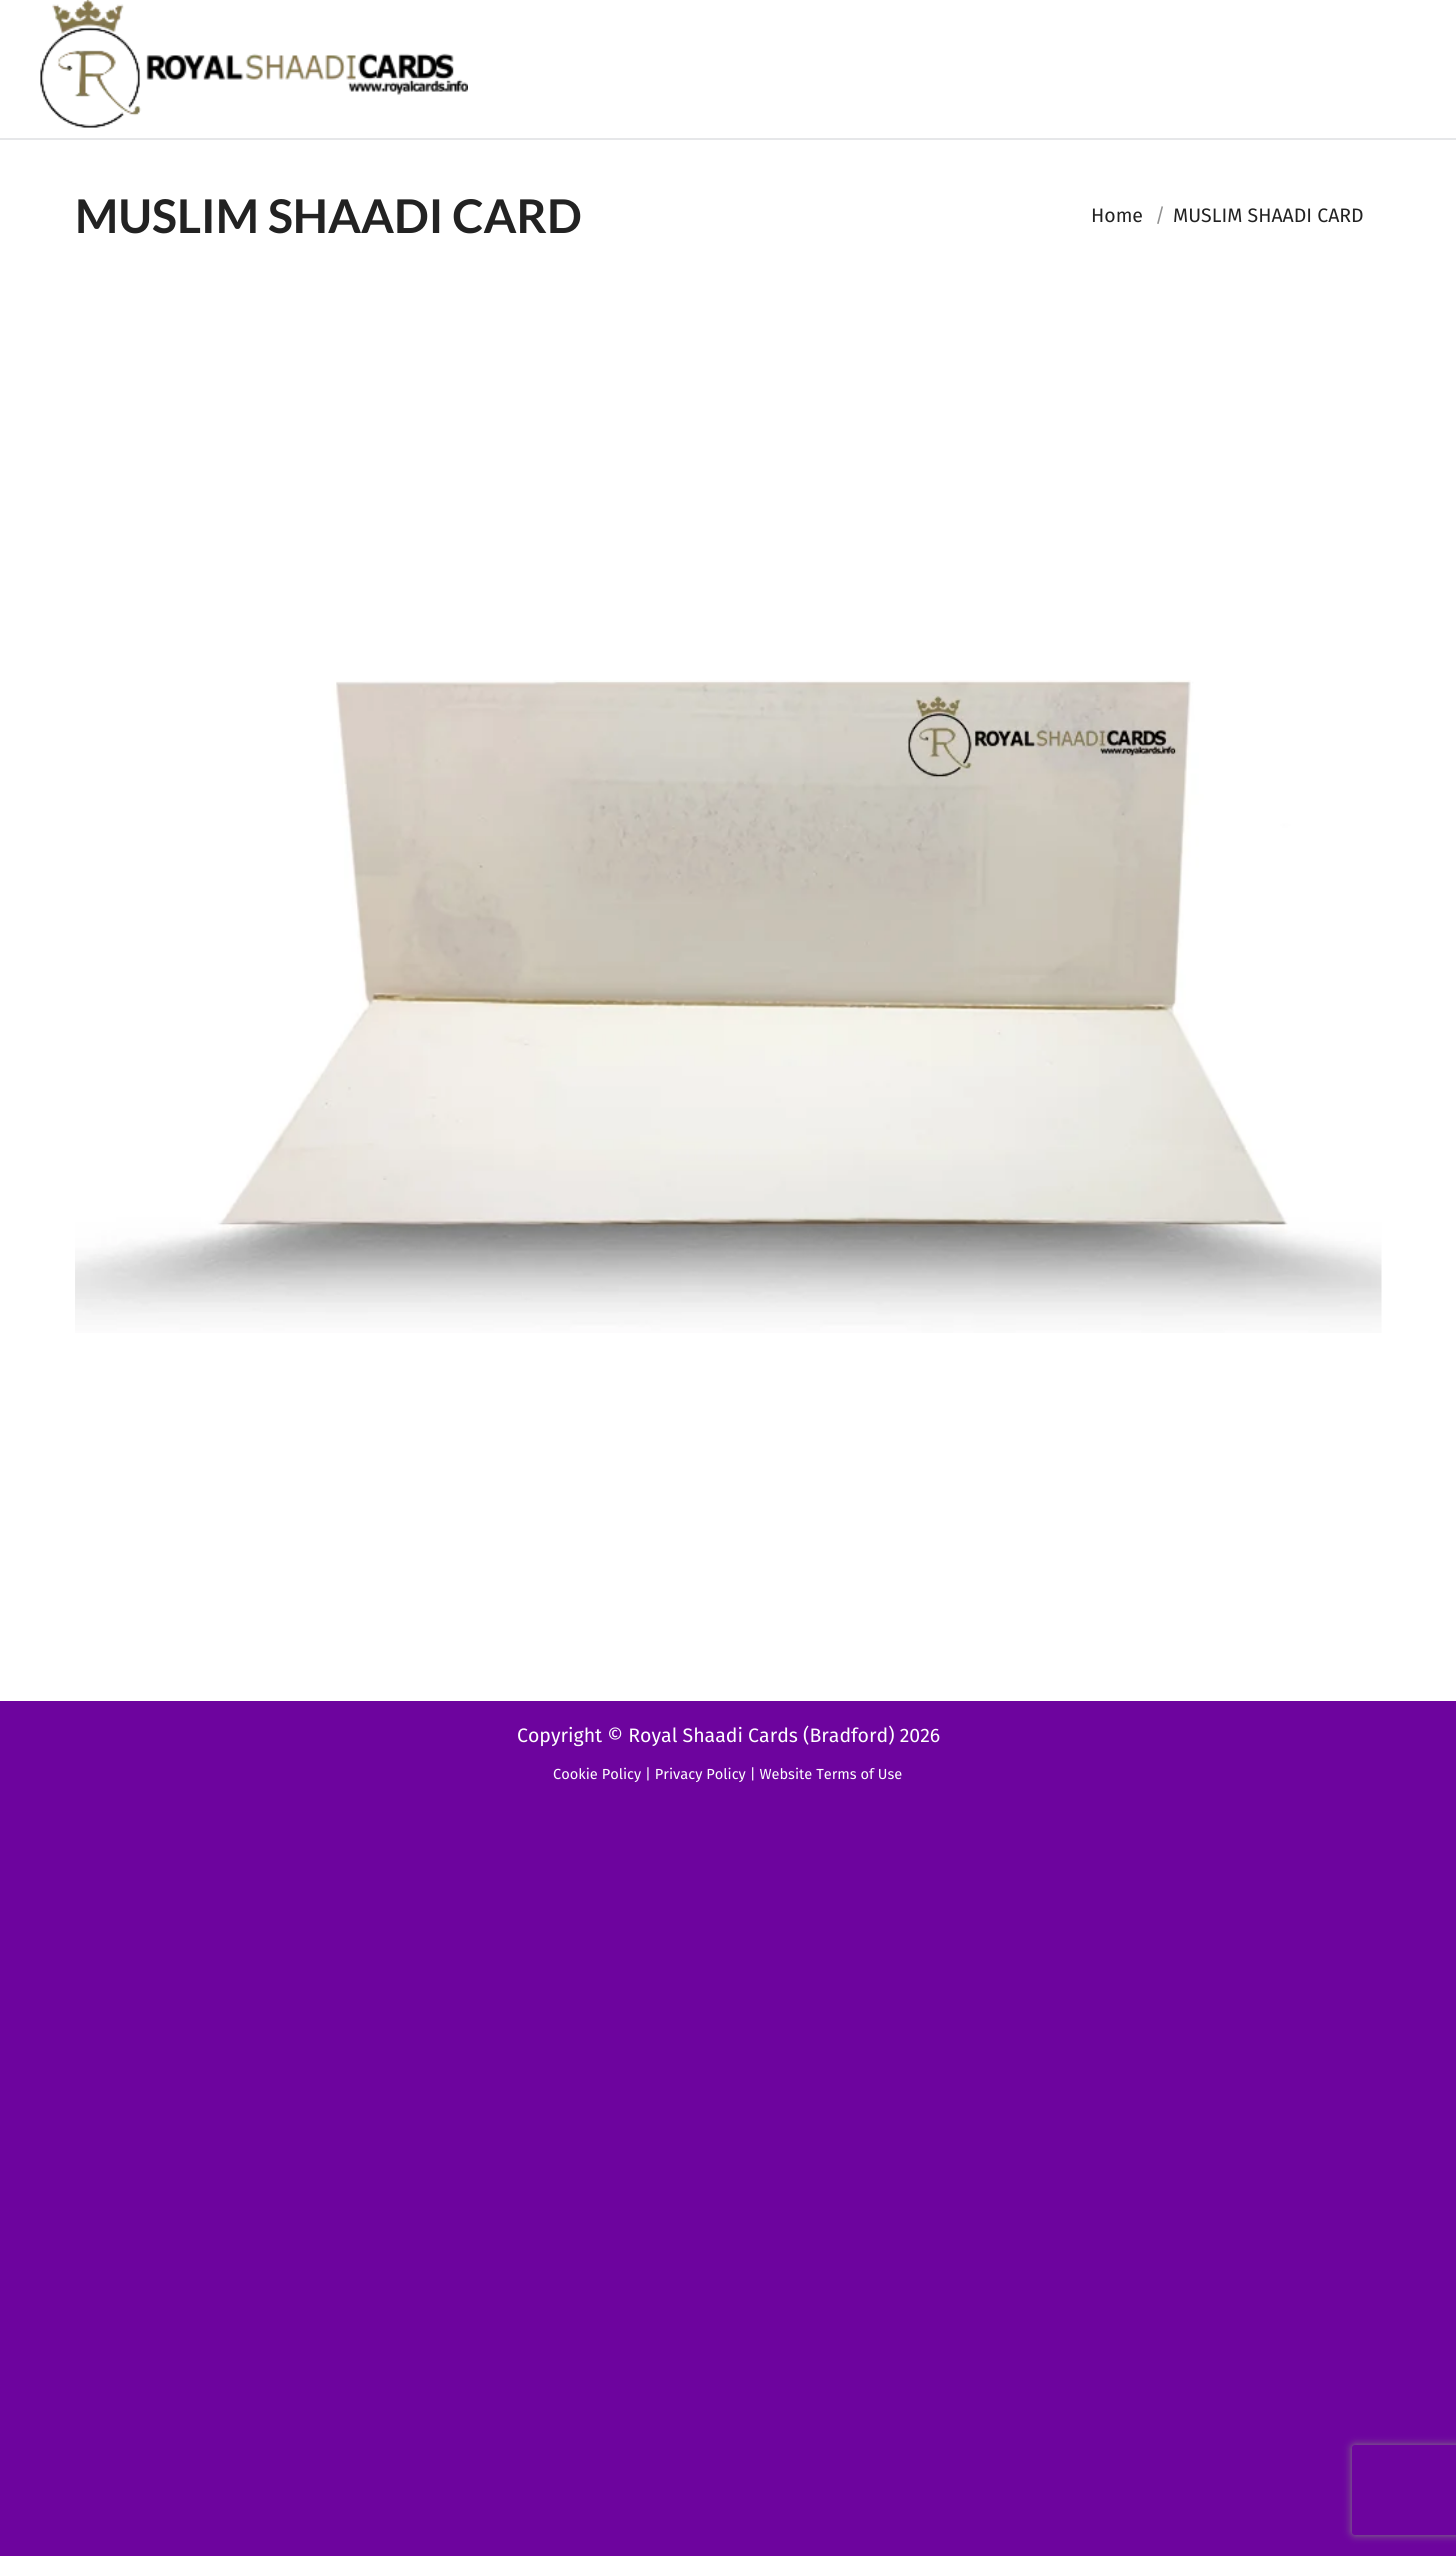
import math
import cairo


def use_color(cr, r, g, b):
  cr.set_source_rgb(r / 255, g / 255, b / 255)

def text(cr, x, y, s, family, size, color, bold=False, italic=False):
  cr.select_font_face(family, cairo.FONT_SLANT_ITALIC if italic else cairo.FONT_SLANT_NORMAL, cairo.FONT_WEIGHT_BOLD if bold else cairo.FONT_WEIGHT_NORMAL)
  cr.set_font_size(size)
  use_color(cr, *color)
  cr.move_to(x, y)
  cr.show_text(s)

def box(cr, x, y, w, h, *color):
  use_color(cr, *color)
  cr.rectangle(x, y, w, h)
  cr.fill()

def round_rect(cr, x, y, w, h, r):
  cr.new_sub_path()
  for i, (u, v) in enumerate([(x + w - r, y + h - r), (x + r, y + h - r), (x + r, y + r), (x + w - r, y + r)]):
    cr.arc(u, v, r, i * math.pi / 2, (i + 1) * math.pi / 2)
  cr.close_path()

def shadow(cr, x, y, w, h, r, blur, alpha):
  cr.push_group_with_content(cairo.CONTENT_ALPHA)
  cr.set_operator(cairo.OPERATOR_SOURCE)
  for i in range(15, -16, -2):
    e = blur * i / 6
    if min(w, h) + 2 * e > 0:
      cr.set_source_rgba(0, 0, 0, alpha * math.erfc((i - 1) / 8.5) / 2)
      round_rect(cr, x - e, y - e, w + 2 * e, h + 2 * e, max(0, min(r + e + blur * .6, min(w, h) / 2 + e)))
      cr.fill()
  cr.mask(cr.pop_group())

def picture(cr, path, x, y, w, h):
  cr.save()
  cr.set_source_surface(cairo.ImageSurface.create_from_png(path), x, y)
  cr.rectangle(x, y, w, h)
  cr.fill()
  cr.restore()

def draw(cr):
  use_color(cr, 109, 4, 158)
  cr.paint()
  box(cr, 0, 0, 1456, 1701, 255, 255, 255)
  box(cr, 0, 138, 1456, 2, 230, 231, 233)
  picture(cr, "img_01.png", 40, 0, 428, 128)
  picture(cr, "img_02.png", 75, 680, 1307, 653)
  cr.save()
  cr.set_fill_rule(cairo.FILL_RULE_EVEN_ODD)
  cr.new_path()
  cr.move_to(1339, 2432)
  cr.line_to(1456, 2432)
  cr.line_to(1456, 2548)
  cr.line_to(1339, 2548)
  cr.close_path()
  cr.move_to(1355, 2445)
  cr.line_to(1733, 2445)
  cr.curve_to(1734.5, 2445, 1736, 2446.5, 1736, 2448)
  cr.line_to(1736, 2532)
  cr.curve_to(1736, 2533.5, 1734.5, 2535, 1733, 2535)
  cr.line_to(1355, 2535)
  cr.curve_to(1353.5, 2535, 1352, 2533.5, 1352, 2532)
  cr.line_to(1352, 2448)
  cr.curve_to(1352, 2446.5, 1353.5, 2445, 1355, 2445)
  cr.close_path()
  cr.clip()
  use_color(cr, 128, 128, 128)
  shadow(cr, 1352, 2445, 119, 90, 3, 4, 1)
  cr.restore()
  text(cr, 75, 233, "MUSLIM SHAADI CARD", "Lato", 46.5, (34, 34, 34), bold=True)
  text(cr, 1091, 222, "Home", "Fira Sans", 19.5, (34, 34, 34))
  text(cr, 1155, 222, "/", "Fira Sans", 19.5, (145, 145, 145))
  text(cr, 1173, 222, "MUSLIM SHAADI CARD", "Fira Sans", 19.5, (34, 34, 34))
  text(cr, 517, 1742, "Copyright © Royal Shaadi Cards (Bradford) 2026", "Fira Sans", 19.5, (255, 255, 255))
  text(cr, 553, 1779, "Cookie Policy | Privacy Policy | Website Terms of Use", "Fira Sans", 14.6, (255, 255, 255))


surface = cairo.ImageSurface(cairo.FORMAT_RGB24, 1456, 2556)
cr = cairo.Context(surface)
options = cairo.FontOptions()
options.set_hint_metrics(cairo.HINT_METRICS_OFF)
options.set_hint_style(cairo.HINT_STYLE_NONE)
cr.set_font_options(options)
cr.set_miter_limit(4)
draw(cr)
surface.write_to_png("out.png")
